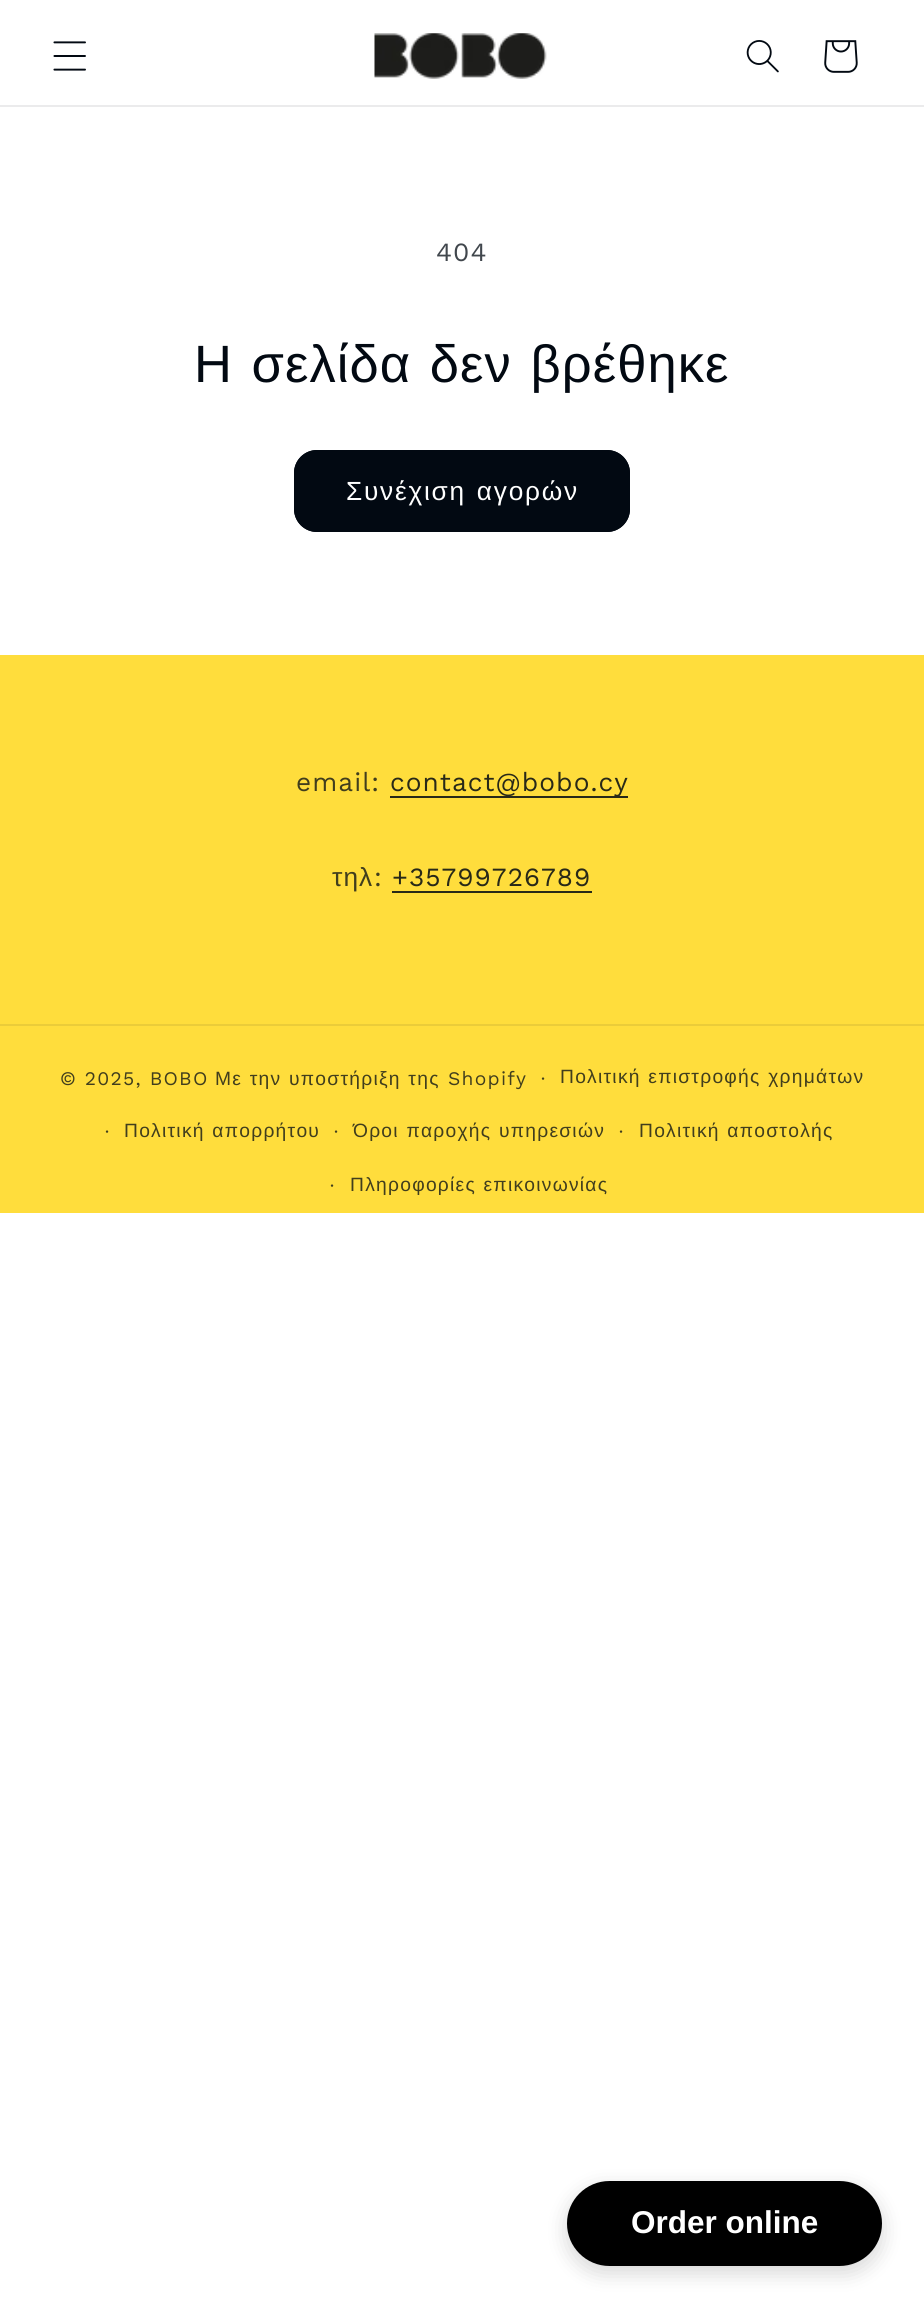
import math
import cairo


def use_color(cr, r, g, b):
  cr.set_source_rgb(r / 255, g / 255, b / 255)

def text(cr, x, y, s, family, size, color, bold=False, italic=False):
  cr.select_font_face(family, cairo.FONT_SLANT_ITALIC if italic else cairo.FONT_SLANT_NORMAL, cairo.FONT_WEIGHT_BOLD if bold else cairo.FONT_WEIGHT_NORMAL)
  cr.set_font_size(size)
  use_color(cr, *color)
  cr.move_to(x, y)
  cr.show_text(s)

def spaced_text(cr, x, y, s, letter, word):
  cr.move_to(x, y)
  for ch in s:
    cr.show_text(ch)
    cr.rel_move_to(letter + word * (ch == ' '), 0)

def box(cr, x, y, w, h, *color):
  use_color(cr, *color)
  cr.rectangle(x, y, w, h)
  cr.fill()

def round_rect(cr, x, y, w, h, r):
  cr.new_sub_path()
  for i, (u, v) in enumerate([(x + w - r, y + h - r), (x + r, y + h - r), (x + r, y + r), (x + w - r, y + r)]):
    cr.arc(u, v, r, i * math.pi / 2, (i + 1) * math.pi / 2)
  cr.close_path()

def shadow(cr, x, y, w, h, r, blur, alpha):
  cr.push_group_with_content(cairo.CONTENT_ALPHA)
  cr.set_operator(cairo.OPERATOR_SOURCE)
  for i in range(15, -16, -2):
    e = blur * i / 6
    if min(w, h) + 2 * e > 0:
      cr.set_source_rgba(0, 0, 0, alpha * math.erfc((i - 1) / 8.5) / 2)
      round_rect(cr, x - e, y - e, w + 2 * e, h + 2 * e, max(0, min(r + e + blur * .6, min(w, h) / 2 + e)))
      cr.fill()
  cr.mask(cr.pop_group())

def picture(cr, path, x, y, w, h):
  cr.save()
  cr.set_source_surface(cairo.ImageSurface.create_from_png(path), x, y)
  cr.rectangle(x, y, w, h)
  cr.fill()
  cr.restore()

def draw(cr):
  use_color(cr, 255, 255, 255)
  cr.paint()
  box(cr, 0, 105, 924, 2, 235, 235, 236)
  picture(cr, "img_01.png", 53, 41, 33, 30)
  picture(cr, "img_02.png", 374, 33, 173, 46)
  picture(cr, "img_03.png", 746, 40, 33, 33)
  picture(cr, "img_04.png", 824, 40, 34, 33)
  use_color(cr, 2, 9, 18)
  round_rect(cr, 294, 450, 336, 82, 23)
  cr.fill()
  round_rect(cr, 295, 451, 334, 80, 22)
  cr.stroke()
  box(cr, 0, 655, 924, 558, 255, 221, 60)
  box(cr, 390, 796, 238, 2, 40, 41, 24)
  box(cr, 392, 891, 200, 2, 40, 41, 24)
  box(cr, 0, 1024, 924, 2, 235, 204, 57)
  use_color(cr, 0, 0, 0)
  shadow(cr, 567, 2188, 315, 85, 42.5, 10.5, 0.16)
  use_color(cr, 0, 0, 0)
  round_rect(cr, 567, 2181, 315, 85, 42.5)
  cr.fill()
  cr.select_font_face("Work Sans")
  cr.set_font_size(26.25)
  use_color(cr, 65, 71, 77)
  spaced_text(cr, 436, 261, "404", 1.05, 0)
  cr.select_font_face("Liberation Sans")
  cr.set_font_size(52.5)
  use_color(cr, 2, 9, 18)
  spaced_text(cr, 194, 382, "Η σελίδα δεν βρέθηκε", 1.05, 3)
  cr.set_font_size(26.25)
  use_color(cr, 255, 255, 255)
  spaced_text(cr, 346, 500, "Συνέχιση αγορών", 1.75, 2)
  cr.select_font_face("Work Sans")
  use_color(cr, 65, 62, 29)
  spaced_text(cr, 296, 791, "email:", 1.05, 0)
  use_color(cr, 40, 41, 24)
  spaced_text(cr, 390, 791, "contact@bobo.cy", 1.05, 0)
  cr.select_font_face("Liberation Sans")
  use_color(cr, 65, 62, 29)
  spaced_text(cr, 332, 886, "τηλ", 1.05, 0)
  cr.select_font_face("Work Sans")
  spaced_text(cr, 374, 886, ":", 1.05, 0)
  use_color(cr, 40, 41, 24)
  spaced_text(cr, 392, 886, "+35799726789", 1.05, 0)
  cr.set_font_size(18)
  use_color(cr, 65, 62, 29)
  spaced_text(cr, 541, 1085, "·", 1.25, 0)
  cr.select_font_face("Liberation Sans")
  cr.set_font_size(19.25)
  spaced_text(cr, 560, 1083, "Πολιτική επιστροφής χρημάτων", 1.25, 1)
  cr.select_font_face("Work Sans")
  cr.set_font_size(18)
  spaced_text(cr, 105, 1138, "·", 1.25, 0)
  cr.select_font_face("Liberation Sans")
  cr.set_font_size(19.25)
  spaced_text(cr, 124, 1137, "Πολιτική απορρήτου", 1.25, 1)
  cr.select_font_face("Work Sans")
  cr.set_font_size(18)
  spaced_text(cr, 334, 1138, "·", 1.25, 0)
  cr.select_font_face("Liberation Sans")
  cr.set_font_size(19.25)
  spaced_text(cr, 353, 1137, "Όροι παροχής υπηρεσιών", 1.25, 1)
  cr.select_font_face("Work Sans")
  cr.set_font_size(18)
  spaced_text(cr, 619, 1138, "·", 1.25, 0)
  cr.select_font_face("Liberation Sans")
  cr.set_font_size(19.25)
  spaced_text(cr, 639, 1137, "Πολιτική αποστολής", 1.25, 1)
  cr.select_font_face("Work Sans")
  cr.set_font_size(18)
  spaced_text(cr, 330, 1192, "·", 1.25, 0)
  cr.select_font_face("Liberation Sans")
  cr.set_font_size(19.25)
  spaced_text(cr, 350, 1191, "Πληροφορίες επικοινωνίας", 1.25, 1)
  cr.select_font_face("Work Sans")
  spaced_text(cr, 60, 1085, "© 2025, BOBO", 1.25, 0)
  cr.select_font_face("Liberation Sans")
  spaced_text(cr, 215, 1085, "Με την υποστήριξη της", 1.25, 1)
  cr.select_font_face("Work Sans")
  spaced_text(cr, 448, 1085, "Shopify", 1.25, 0)
  text(cr, 631, 2233, "Order online", "Liberation Sans", 31.5, (255, 255, 255), bold=True)


surface = cairo.ImageSurface(cairo.FORMAT_RGB24, 924, 2322)
cr = cairo.Context(surface)
options = cairo.FontOptions()
options.set_hint_metrics(cairo.HINT_METRICS_OFF)
options.set_hint_style(cairo.HINT_STYLE_NONE)
cr.set_font_options(options)
cr.set_miter_limit(4)
draw(cr)
surface.write_to_png("out.png")
